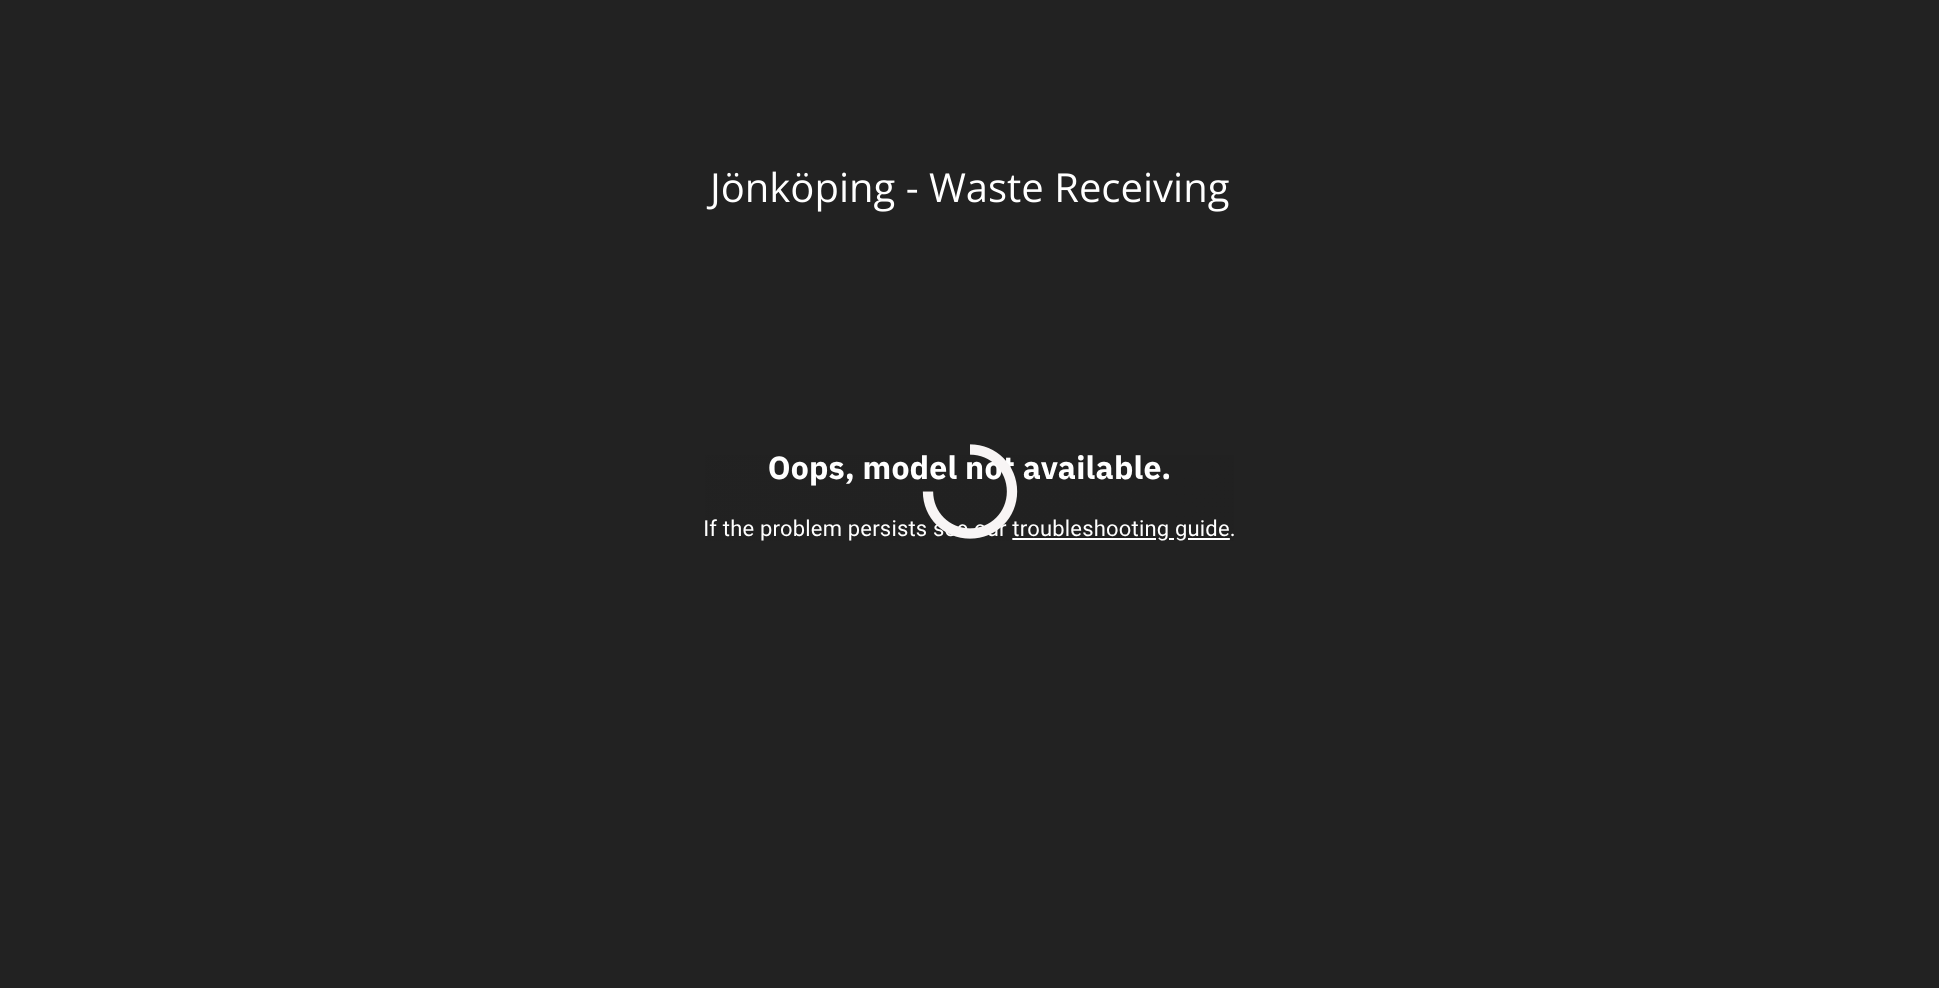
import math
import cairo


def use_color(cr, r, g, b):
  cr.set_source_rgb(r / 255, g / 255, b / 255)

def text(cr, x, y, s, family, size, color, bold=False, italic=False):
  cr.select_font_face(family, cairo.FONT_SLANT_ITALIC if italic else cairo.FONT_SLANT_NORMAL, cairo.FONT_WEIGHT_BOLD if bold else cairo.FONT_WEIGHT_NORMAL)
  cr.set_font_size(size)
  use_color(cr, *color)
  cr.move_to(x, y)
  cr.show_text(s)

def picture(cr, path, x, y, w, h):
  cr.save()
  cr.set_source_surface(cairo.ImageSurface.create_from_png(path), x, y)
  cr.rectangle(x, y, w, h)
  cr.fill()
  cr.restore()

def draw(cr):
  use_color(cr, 34, 34, 34)
  cr.paint()
  picture(cr, "img_01.png", 705, 455, 529, 86)
  cr.new_path()
  cr.move_to(970, 449.5)
  cr.curve_to(993.5, 449.5, 1012, 468, 1012, 491.5)
  cr.curve_to(1012, 515, 993.5, 533.5, 970, 533.5)
  cr.curve_to(946.5, 533.5, 928, 515, 928, 491.5)
  use_color(cr, 248, 245, 245)
  cr.set_line_width(10.3)
  cr.stroke()
  text(cr, 710, 202, "Jönköping - Waste Receiving", "Open Sans", 40, (255, 255, 255))


surface = cairo.ImageSurface(cairo.FORMAT_RGB24, 1939, 988)
cr = cairo.Context(surface)
options = cairo.FontOptions()
options.set_hint_metrics(cairo.HINT_METRICS_OFF)
options.set_hint_style(cairo.HINT_STYLE_NONE)
cr.set_font_options(options)
cr.set_miter_limit(4)
draw(cr)
surface.write_to_png("out.png")
